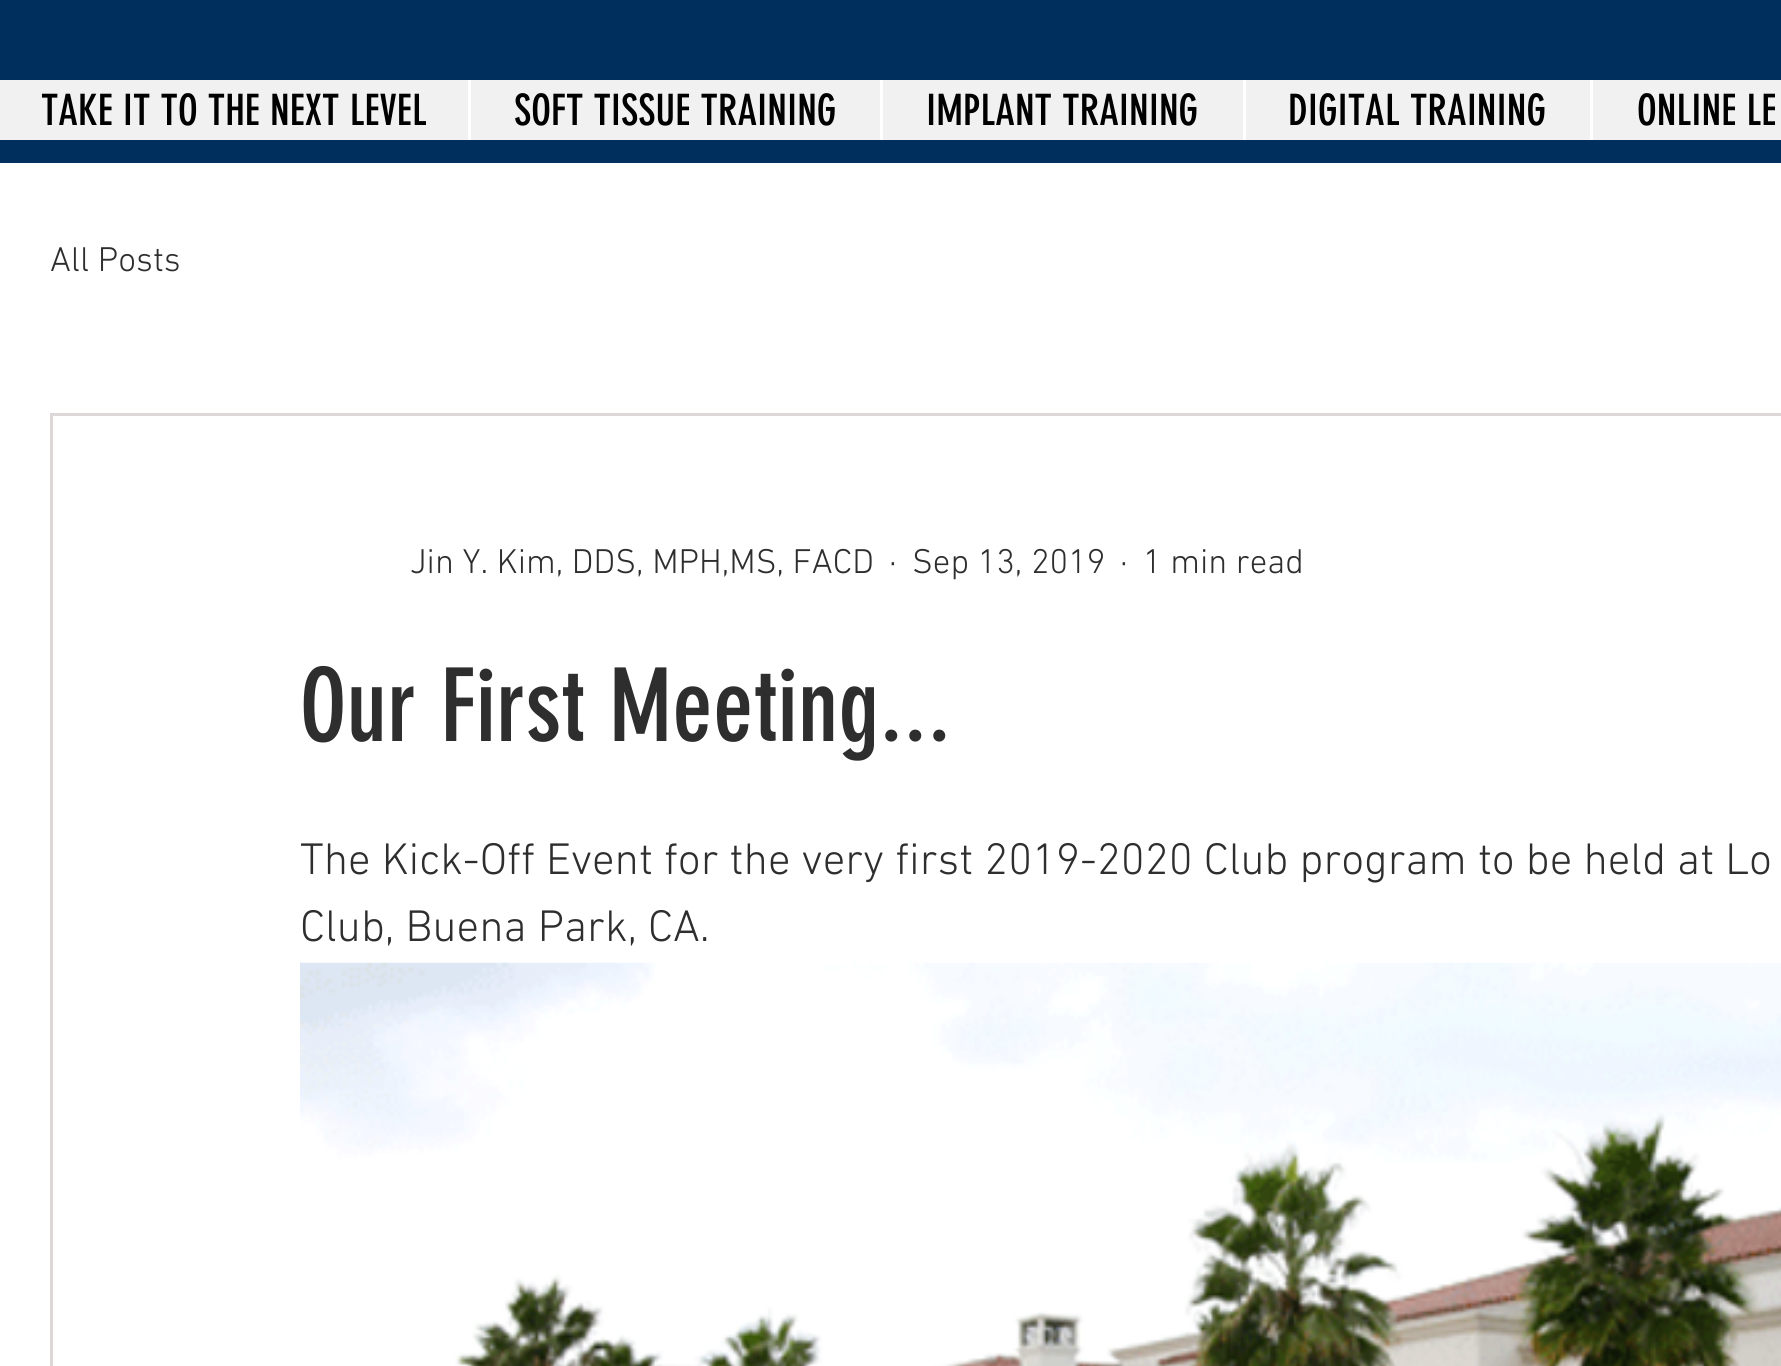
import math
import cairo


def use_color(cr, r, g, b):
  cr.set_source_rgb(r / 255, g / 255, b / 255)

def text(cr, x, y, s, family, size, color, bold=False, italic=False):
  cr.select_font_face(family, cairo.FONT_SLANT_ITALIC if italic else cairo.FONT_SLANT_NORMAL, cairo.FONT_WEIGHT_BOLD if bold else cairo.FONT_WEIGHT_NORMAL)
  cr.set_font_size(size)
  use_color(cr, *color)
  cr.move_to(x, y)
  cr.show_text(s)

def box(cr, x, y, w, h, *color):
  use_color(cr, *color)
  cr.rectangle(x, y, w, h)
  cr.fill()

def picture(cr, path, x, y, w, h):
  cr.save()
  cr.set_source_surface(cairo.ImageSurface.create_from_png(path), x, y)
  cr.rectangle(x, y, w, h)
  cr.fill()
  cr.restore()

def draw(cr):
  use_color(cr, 255, 255, 255)
  cr.paint()
  box(cr, 0, 0, 1781, 163, 0, 46, 93)
  box(cr, 0, 80, 1781, 60, 241, 241, 241)
  box(cr, 468, 80, 3, 60, 255, 255, 255)
  box(cr, 880, 80, 3, 60, 255, 255, 255)
  box(cr, 1243, 80, 3, 60, 255, 255, 255)
  box(cr, 1590, 80, 3, 60, 255, 255, 255)
  cr.rectangle(51.5, 414.5, 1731, 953)
  use_color(cr, 221, 215, 215)
  cr.set_line_width(3)
  cr.stroke()
  picture(cr, "img_01.png", 300, 962, 1481, 404)
  text(cr, 41, 125, "TAKE IT TO THE NEXT LEVEL", "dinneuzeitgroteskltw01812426", 42.5, (0, 0, 0))
  text(cr, 514, 125, "SOFT TISSUE TRAINING", "dinneuzeitgroteskltw01812426", 42.5, (0, 0, 0))
  text(cr, 926, 125, "IMPLANT TRAINING", "dinneuzeitgroteskltw01812426", 42.5, (0, 0, 0))
  text(cr, 1288, 125, "DIGITAL TRAINING", "dinneuzeitgroteskltw01812426", 42.5, (0, 0, 0))
  text(cr, 1637, 125, "ONLINE LE", "dinneuzeitgroteskltw01812426", 42.5, (0, 0, 0))
  text(cr, 50, 271, "All Posts", "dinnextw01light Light", 35, (47, 46, 46))
  text(cr, 410, 573, "Jin Y. Kim, DDS, MPH,MS, FACD", "dinnextw01light Light", 35, (47, 46, 46))
  text(cr, 889, 573, "·", "dinnextw01light Light", 35, (47, 46, 46))
  text(cr, 912, 573, "Sep 13, 2019", "dinnextw01light Light", 35, (47, 46, 46))
  text(cr, 1120, 573, "·", "dinnextw01light Light", 35, (47, 46, 46))
  text(cr, 1143, 573, "1 min read", "dinnextw01light Light", 35, (47, 46, 46))
  text(cr, 300, 741, "Our First Meeting...", "dinneuzeitgroteskltw01812426", 100, (47, 46, 46))
  text(cr, 300, 874, "The Kick-Off Event for the very first 2019-2020 Club program to be held at Lo", "dinnextw01light Light", 45, (47, 46, 46))
  text(cr, 300, 941, "Club, Buena Park, CA.", "dinnextw01light Light", 45, (47, 46, 46))


surface = cairo.ImageSurface(cairo.FORMAT_RGB24, 1781, 1366)
cr = cairo.Context(surface)
options = cairo.FontOptions()
options.set_hint_metrics(cairo.HINT_METRICS_OFF)
options.set_hint_style(cairo.HINT_STYLE_NONE)
cr.set_font_options(options)
cr.set_miter_limit(4)
draw(cr)
surface.write_to_png("out.png")
